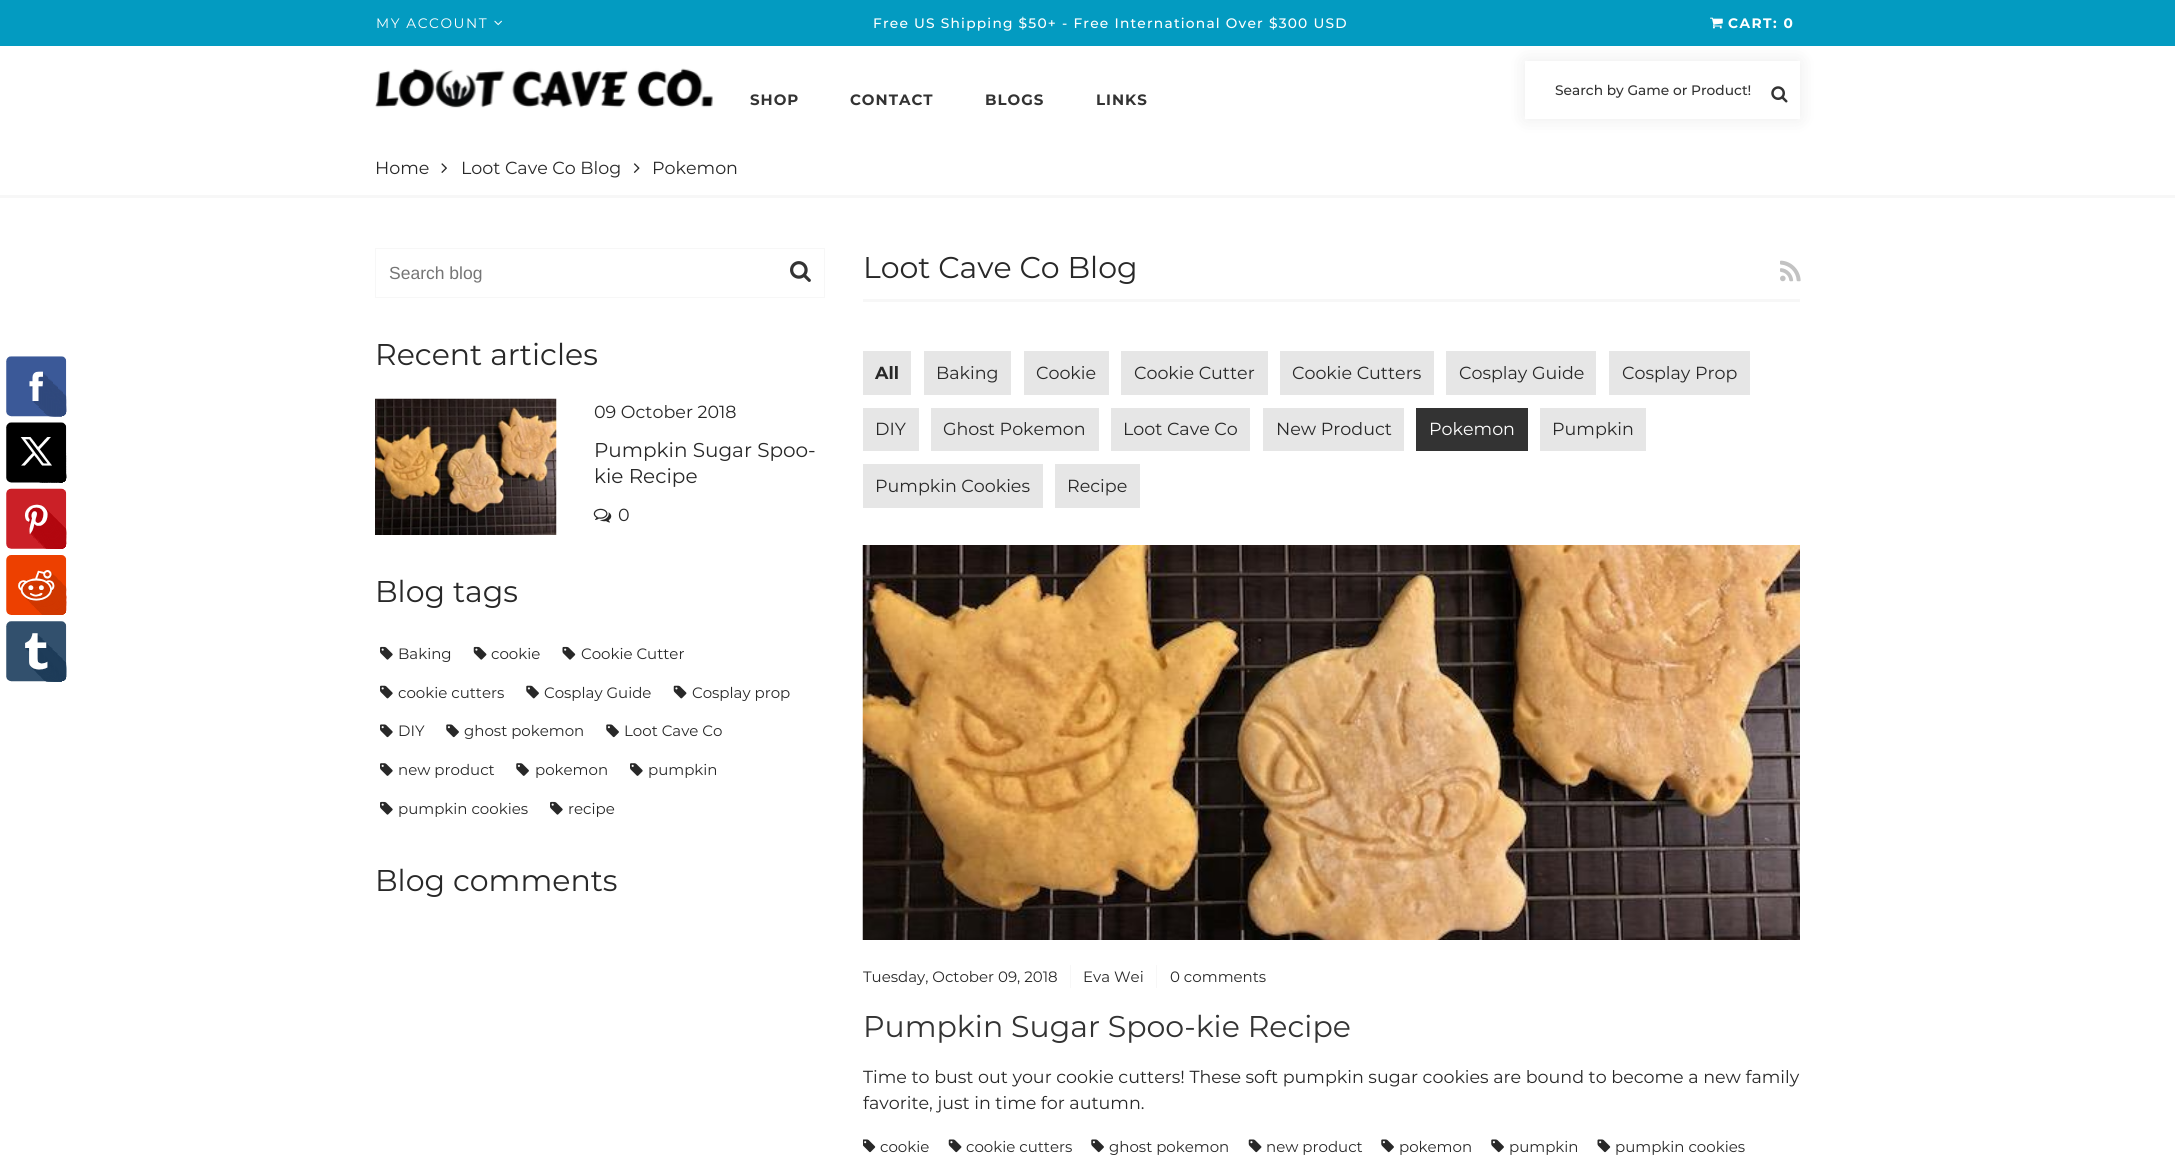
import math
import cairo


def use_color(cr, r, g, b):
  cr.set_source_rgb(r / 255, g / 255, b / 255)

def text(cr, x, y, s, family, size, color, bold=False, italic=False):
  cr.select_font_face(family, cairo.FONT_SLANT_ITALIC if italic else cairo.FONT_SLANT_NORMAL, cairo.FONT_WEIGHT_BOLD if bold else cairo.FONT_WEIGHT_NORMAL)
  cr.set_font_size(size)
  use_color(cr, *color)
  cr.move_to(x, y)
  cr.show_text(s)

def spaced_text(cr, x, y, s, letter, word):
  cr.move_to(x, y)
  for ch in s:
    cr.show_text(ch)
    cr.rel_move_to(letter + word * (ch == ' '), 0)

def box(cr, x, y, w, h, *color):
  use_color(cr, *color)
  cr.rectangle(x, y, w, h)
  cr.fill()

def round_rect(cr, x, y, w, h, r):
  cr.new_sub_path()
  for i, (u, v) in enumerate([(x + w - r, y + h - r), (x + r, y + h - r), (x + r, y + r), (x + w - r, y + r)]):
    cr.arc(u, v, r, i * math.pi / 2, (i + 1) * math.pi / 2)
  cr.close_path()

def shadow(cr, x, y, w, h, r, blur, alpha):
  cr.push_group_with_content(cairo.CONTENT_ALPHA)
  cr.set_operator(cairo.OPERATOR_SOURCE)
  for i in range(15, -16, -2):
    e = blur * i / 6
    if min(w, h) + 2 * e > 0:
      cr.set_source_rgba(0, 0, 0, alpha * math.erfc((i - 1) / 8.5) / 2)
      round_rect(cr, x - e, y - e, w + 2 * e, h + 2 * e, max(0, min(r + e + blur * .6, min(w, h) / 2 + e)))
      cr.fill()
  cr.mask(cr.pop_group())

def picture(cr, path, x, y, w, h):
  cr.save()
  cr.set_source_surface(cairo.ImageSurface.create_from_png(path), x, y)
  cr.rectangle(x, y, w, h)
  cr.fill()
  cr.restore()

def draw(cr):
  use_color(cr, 255, 255, 255)
  cr.paint()
  picture(cr, "img_01.png", 6, 356, 61, 326)
  box(cr, 0, 0, 2175, 46, 3, 155, 193)
  picture(cr, "img_02.png", 494, 20, 8, 6)
  picture(cr, "img_03.png", 1710, 17, 13, 12)
  picture(cr, "img_04.png", 375, 68, 338, 40)
  use_color(cr, 0, 0, 0)
  shadow(cr, 1525, 61, 275, 58, 0, 9.5, 0.08)
  box(cr, 1525, 61, 275, 58, 255, 255, 255)
  picture(cr, "img_05.png", 1771, 86, 17, 17)
  box(cr, 0, 195, 2175, 3, 247, 247, 247)
  picture(cr, "img_06.png", 441, 163, 6, 10)
  picture(cr, "img_07.png", 633, 163, 7, 10)
  cr.rectangle(375.5, 248.5, 449, 49)
  cr.set_line_width(1)
  cr.stroke()
  picture(cr, "img_08.png", 790, 261, 21, 21)
  picture(cr, "img_09.png", 375, 398, 182, 137)
  picture(cr, "img_10.png", 593, 508, 19, 15)
  picture(cr, "img_11.png", 380, 646, 13, 14)
  picture(cr, "img_12.png", 473, 646, 14, 14)
  picture(cr, "img_13.png", 562, 646, 14, 14)
  picture(cr, "img_14.png", 380, 685, 13, 14)
  picture(cr, "img_15.png", 526, 685, 13, 14)
  picture(cr, "img_16.png", 673, 685, 14, 14)
  picture(cr, "img_17.png", 380, 724, 13, 14)
  picture(cr, "img_18.png", 446, 724, 13, 14)
  picture(cr, "img_18.png", 606, 724, 13, 14)
  picture(cr, "img_19.png", 380, 763, 13, 13)
  picture(cr, "img_20.png", 516, 763, 13, 13)
  picture(cr, "img_19.png", 630, 763, 13, 13)
  picture(cr, "img_11.png", 380, 801, 13, 14)
  picture(cr, "img_11.png", 550, 801, 13, 14)
  box(cr, 863, 299, 937, 3, 247, 247, 247)
  picture(cr, "img_21.png", 1780, 260, 21, 22)
  box(cr, 863, 351, 48, 44, 230, 230, 230)
  box(cr, 924, 351, 87, 44, 230, 230, 230)
  box(cr, 1024, 351, 85, 44, 230, 230, 230)
  box(cr, 1121, 351, 147, 44, 230, 230, 230)
  box(cr, 1280, 351, 154, 44, 230, 230, 230)
  box(cr, 1446, 351, 150, 44, 230, 230, 230)
  box(cr, 1609, 351, 141, 44, 230, 230, 230)
  box(cr, 863, 408, 56, 43, 230, 230, 230)
  box(cr, 931, 408, 168, 43, 230, 230, 230)
  box(cr, 1111, 408, 139, 43, 230, 230, 230)
  box(cr, 1263, 408, 141, 43, 230, 230, 230)
  box(cr, 1416, 408, 112, 43, 51, 51, 51)
  box(cr, 1540, 408, 106, 43, 230, 230, 230)
  box(cr, 863, 464, 180, 44, 230, 230, 230)
  box(cr, 1055, 464, 85, 44, 230, 230, 230)
  picture(cr, "img_22.png", 862, 545, 938, 395)
  box(cr, 1070, 965, 1, 23, 247, 247, 247)
  box(cr, 1156, 965, 1, 23, 247, 247, 247)
  picture(cr, "img_23.png", 863, 1139, 13, 14)
  picture(cr, "img_24.png", 948, 1139, 14, 14)
  picture(cr, "img_18.png", 1091, 1139, 13, 14)
  picture(cr, "img_24.png", 1248, 1139, 14, 14)
  picture(cr, "img_18.png", 1381, 1139, 13, 14)
  picture(cr, "img_18.png", 1491, 1139, 13, 14)
  picture(cr, "img_25.png", 1597, 1139, 14, 14)
  cr.select_font_face("Montserrat")
  cr.set_font_size(13.75)
  use_color(cr, 255, 255, 255)
  spaced_text(cr, 376, 28, "MY ACCOUNT", 1.6, 0)
  cr.select_font_face("Montserrat Medium")
  spaced_text(cr, 873, 28, "Free US Shipping $50+ - Free International Over $300 USD", 1.22, 0)
  cr.select_font_face("Montserrat", cairo.FONT_SLANT_NORMAL, cairo.FONT_WEIGHT_BOLD)
  spaced_text(cr, 1728, 28, "CART: 0", 1.5, 0)
  text(cr, 1555, 95, "Search by Game or Product!", "Montserrat Medium", 13.75, (51, 51, 51))
  cr.select_font_face("Montserrat", cairo.FONT_SLANT_NORMAL, cairo.FONT_WEIGHT_BOLD)
  cr.set_font_size(15)
  spaced_text(cr, 750, 105, "SHOP", 1, 0)
  spaced_text(cr, 850, 105, "CONTACT", 1, 0)
  spaced_text(cr, 985, 105, "BLOGS", 1, 0)
  spaced_text(cr, 1096, 105, "LINKS", 1, 0)
  text(cr, 375, 174, "Home", "Montserrat", 17.5, (40, 40, 40))
  text(cr, 461, 174, "Loot Cave Co Blog", "Montserrat", 17.5, (40, 40, 40))
  text(cr, 652, 174, "Pokemon", "Montserrat", 17.5, (40, 40, 40))
  text(cr, 389, 279, "Search blog", "Liberation Sans", 17.5, (117, 117, 117))
  text(cr, 375, 365, "Recent articles", "Montserrat", 30, (40, 40, 40))
  text(cr, 594, 418, "09 October 2018", "Montserrat", 17.5, (40, 40, 40))
  text(cr, 594, 457, "Pumpkin Sugar Spoo-", "Montserrat", 20, (40, 40, 40))
  text(cr, 594, 483, "kie Recipe", "Montserrat", 20, (40, 40, 40))
  text(cr, 618, 521, "0", "Montserrat", 17.5, (40, 40, 40))
  text(cr, 375, 602, "Blog tags", "Montserrat", 30, (40, 40, 40))
  text(cr, 398, 659, "Baking", "Montserrat", 15, (40, 40, 40))
  text(cr, 491, 659, "cookie", "Montserrat", 15, (40, 40, 40))
  text(cr, 581, 659, "Cookie Cutter", "Montserrat", 15, (40, 40, 40))
  text(cr, 398, 698, "cookie cutters", "Montserrat", 15, (40, 40, 40))
  text(cr, 544, 698, "Cosplay Guide", "Montserrat", 15, (40, 40, 40))
  text(cr, 692, 698, "Cosplay prop", "Montserrat", 15, (40, 40, 40))
  text(cr, 398, 736, "DIY", "Montserrat", 15, (40, 40, 40))
  text(cr, 464, 736, "ghost pokemon", "Montserrat", 15, (40, 40, 40))
  text(cr, 624, 736, "Loot Cave Co", "Montserrat", 15, (40, 40, 40))
  text(cr, 398, 775, "new product", "Montserrat", 15, (40, 40, 40))
  text(cr, 535, 775, "pokemon", "Montserrat", 15, (40, 40, 40))
  text(cr, 648, 775, "pumpkin", "Montserrat", 15, (40, 40, 40))
  text(cr, 398, 814, "pumpkin cookies", "Montserrat", 15, (40, 40, 40))
  text(cr, 568, 814, "recipe", "Montserrat", 15, (40, 40, 40))
  text(cr, 375, 891, "Blog comments", "Montserrat", 30, (40, 40, 40))
  text(cr, 863, 278, "Loot Cave Co Blog", "Montserrat", 30, (40, 40, 40))
  text(cr, 875, 379, "All", "Montserrat", 17.5, (40, 40, 40), bold=True)
  text(cr, 936, 379, "Baking", "Montserrat", 17.5, (40, 40, 40))
  text(cr, 1036, 379, "Cookie", "Montserrat", 17.5, (40, 40, 40))
  text(cr, 1134, 379, "Cookie Cutter", "Montserrat", 17.5, (40, 40, 40))
  text(cr, 1292, 379, "Cookie Cutters", "Montserrat", 17.5, (40, 40, 40))
  text(cr, 1459, 379, "Cosplay Guide", "Montserrat", 17.5, (40, 40, 40))
  text(cr, 1622, 379, "Cosplay Prop", "Montserrat", 17.5, (40, 40, 40))
  text(cr, 875, 435, "DIY", "Montserrat", 17.5, (40, 40, 40))
  text(cr, 943, 435, "Ghost Pokemon", "Montserrat", 17.5, (40, 40, 40))
  text(cr, 1123, 435, "Loot Cave Co", "Montserrat", 17.5, (40, 40, 40))
  text(cr, 1276, 435, "New Product", "Montserrat", 17.5, (40, 40, 40))
  text(cr, 1429, 435, "Pokemon", "Montserrat", 17.5, (255, 255, 255))
  text(cr, 1552, 435, "Pumpkin", "Montserrat", 17.5, (40, 40, 40))
  text(cr, 875, 492, "Pumpkin Cookies", "Montserrat", 17.5, (40, 40, 40))
  text(cr, 1067, 492, "Recipe", "Montserrat", 17.5, (40, 40, 40))
  text(cr, 863, 982, "Tuesday, October 09, 2018", "Montserrat", 15, (40, 40, 40))
  text(cr, 1083, 982, "Eva Wei", "Montserrat", 15, (40, 40, 40))
  text(cr, 1170, 982, "0 comments", "Montserrat", 15, (40, 40, 40))
  text(cr, 863, 1037, "Pumpkin Sugar Spoo-kie Recipe", "Montserrat", 30, (51, 51, 51))
  text(cr, 863, 1083, "Time to bust out your cookie cutters! These soft pumpkin sugar cookies are bound to become a new family", "Montserrat", 17.5, (40, 40, 40))
  text(cr, 863, 1109, "favorite, just in time for autumn.", "Montserrat", 17.5, (40, 40, 40))
  text(cr, 880, 1152, "cookie", "Montserrat", 15, (40, 40, 40))
  text(cr, 966, 1152, "cookie cutters", "Montserrat", 15, (40, 40, 40))
  text(cr, 1109, 1152, "ghost pokemon", "Montserrat", 15, (40, 40, 40))
  text(cr, 1266, 1152, "new product", "Montserrat", 15, (40, 40, 40))
  text(cr, 1399, 1152, "pokemon", "Montserrat", 15, (40, 40, 40))
  text(cr, 1509, 1152, "pumpkin", "Montserrat", 15, (40, 40, 40))
  text(cr, 1615, 1152, "pumpkin cookies", "Montserrat", 15, (40, 40, 40))


surface = cairo.ImageSurface(cairo.FORMAT_RGB24, 2175, 1165)
cr = cairo.Context(surface)
options = cairo.FontOptions()
options.set_hint_metrics(cairo.HINT_METRICS_OFF)
options.set_hint_style(cairo.HINT_STYLE_NONE)
cr.set_font_options(options)
cr.set_miter_limit(4)
draw(cr)
surface.write_to_png("out.png")
